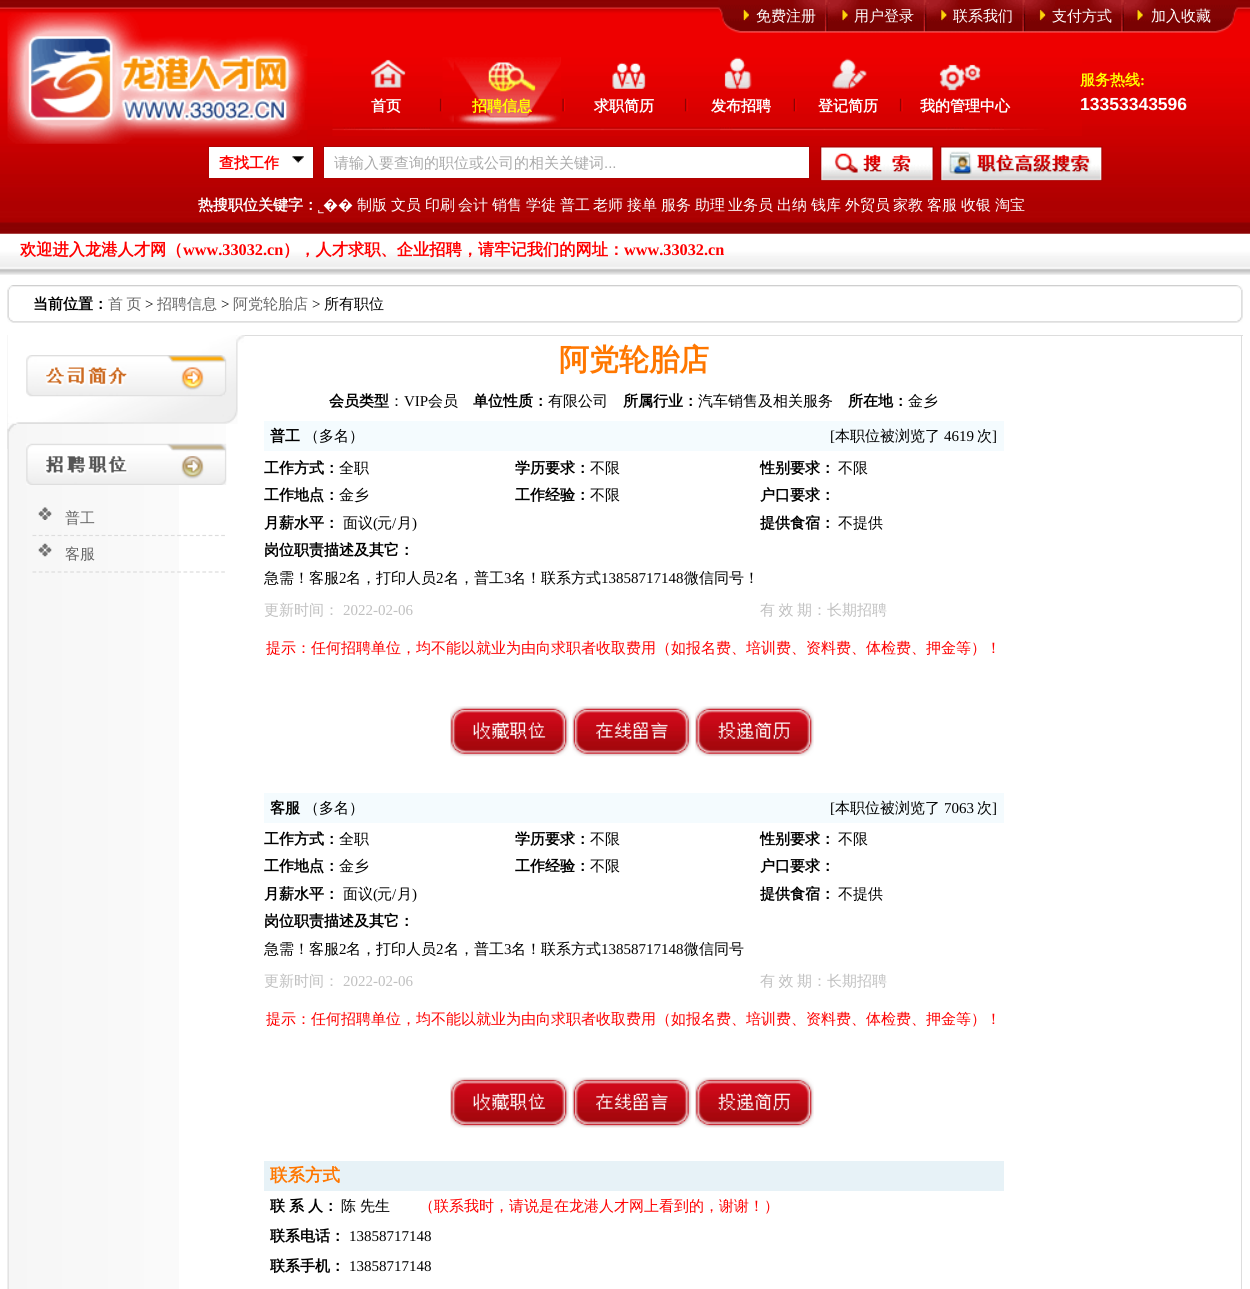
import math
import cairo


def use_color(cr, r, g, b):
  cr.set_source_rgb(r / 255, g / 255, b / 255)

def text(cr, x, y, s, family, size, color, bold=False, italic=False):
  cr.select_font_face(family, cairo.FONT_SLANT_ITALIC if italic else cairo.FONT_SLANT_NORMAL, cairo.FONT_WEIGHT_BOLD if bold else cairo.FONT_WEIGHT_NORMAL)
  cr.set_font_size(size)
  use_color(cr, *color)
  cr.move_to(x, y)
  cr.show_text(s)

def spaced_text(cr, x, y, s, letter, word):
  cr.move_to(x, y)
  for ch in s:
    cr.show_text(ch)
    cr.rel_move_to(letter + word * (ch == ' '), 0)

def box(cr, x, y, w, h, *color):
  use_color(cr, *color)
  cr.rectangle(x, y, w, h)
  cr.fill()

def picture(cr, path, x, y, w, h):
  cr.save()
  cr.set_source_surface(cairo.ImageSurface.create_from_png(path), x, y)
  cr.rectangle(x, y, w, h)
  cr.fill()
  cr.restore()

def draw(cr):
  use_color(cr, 255, 255, 255)
  cr.paint()
  picture(cr, "img_01.png", 0, 0, 1250, 275)
  picture(cr, "img_02.png", 7, 12, 301, 132)
  picture(cr, "img_03.png", 718, 0, 520, 33)
  picture(cr, "img_04.png", 332, 57, 750, 79)
  picture(cr, "img_05.png", 442, 57, 119, 69)
  box(cr, 209, 147, 104, 31, 255, 255, 255)
  picture(cr, "img_06.png", 292, 156, 12, 7)
  cr.rectangle(208.5, 146.5, 105, 32)
  use_color(cr, 175, 3, 3)
  cr.set_line_width(1)
  cr.stroke()
  use_color(cr, 255, 255, 255)
  cr.rectangle(323.5, 146.5, 486, 32)
  cr.fill_preserve()
  use_color(cr, 175, 3, 3)
  cr.stroke()
  picture(cr, "img_07.png", 820, 146, 114, 35)
  picture(cr, "img_08.png", 940, 146, 163, 35)
  picture(cr, "img_09.png", 7, 285, 1236, 38)
  picture(cr, "img_10.png", 7, 335, 172, 954)
  picture(cr, "img_11.png", 7, 335, 238, 89)
  picture(cr, "img_12.png", 26, 355, 201, 42)
  picture(cr, "img_13.png", 7, 423, 219, 26)
  picture(cr, "img_14.png", 26, 443, 201, 42)
  picture(cr, "img_15.png", 38, 507, 14, 13)
  cr.new_path()
  cr.move_to(32.5, 535.5)
  cr.line_to(225, 535.5)
  use_color(cr, 221, 221, 221)
  cr.set_line_width(1.2)
  cr.set_dash([3.75, 2.54])
  cr.stroke()
  picture(cr, "img_16.png", 38, 543, 14, 14)
  cr.new_path()
  cr.move_to(32.5, 572)
  cr.line_to(225, 572)
  cr.stroke()
  box(cr, 245, 335, 998, 1, 221, 221, 221)
  box(cr, 1241, 335, 1, 954, 221, 221, 221)
  box(cr, 264, 421, 740, 30, 244, 251, 254)
  picture(cr, "img_17.png", 450, 706, 119, 51)
  picture(cr, "img_18.png", 572, 706, 120, 51)
  picture(cr, "img_19.png", 695, 706, 119, 51)
  box(cr, 264, 793, 740, 30, 244, 251, 254)
  picture(cr, "img_20.png", 450, 1077, 119, 51)
  picture(cr, "img_21.png", 572, 1077, 120, 51)
  picture(cr, "img_22.png", 695, 1077, 119, 51)
  box(cr, 264, 1161, 740, 30, 231, 242, 247)
  text(cr, 756, 21, "免费注册", "WenQuanYi Zen Hei Medium", 15, (255, 255, 255))
  text(cr, 854, 21, "用户登录", "WenQuanYi Zen Hei Medium", 15, (255, 255, 255))
  text(cr, 953, 21, "联系我们", "WenQuanYi Zen Hei Medium", 15, (255, 255, 255))
  text(cr, 1052, 21, "支付方式", "WenQuanYi Zen Hei Medium", 15, (255, 255, 255))
  text(cr, 1151, 21, "加入收藏", "WenQuanYi Zen Hei Medium", 15, (255, 255, 255))
  text(cr, 371, 111, "首页", "WenQuanYi Zen Hei", 15, (255, 255, 255), bold=True)
  text(cr, 472, 111, "招聘信息", "WenQuanYi Zen Hei", 15, (255, 255, 0), bold=True)
  text(cr, 594, 111, "求职简历", "WenQuanYi Zen Hei", 15, (255, 255, 255), bold=True)
  text(cr, 711, 111, "发布招聘", "WenQuanYi Zen Hei", 15, (255, 255, 255), bold=True)
  text(cr, 818, 111, "登记简历", "WenQuanYi Zen Hei", 15, (255, 255, 255), bold=True)
  text(cr, 920, 111, "我的管理中心", "WenQuanYi Zen Hei", 15, (255, 255, 255), bold=True)
  text(cr, 1080, 85, "服务热线", "WenQuanYi Zen Hei", 15, (255, 255, 0), bold=True)
  text(cr, 1140, 85, ":", "Liberation Serif", 15, (255, 255, 0), bold=True)
  text(cr, 1080, 110, "13353343596", "Liberation Sans", 17.5, (255, 255, 255), bold=True)
  text(cr, 219, 168, "查找工作", "WenQuanYi Zen Hei", 15, (254, 0, 0), bold=True)
  text(cr, 334, 168, "请输入要查询的职位或公司的相关关键词", "WenQuanYi Zen Hei Medium", 15, (169, 169, 169))
  text(cr, 604, 168, "...", "Liberation Sans", 15, (169, 169, 169))
  text(cr, 198, 210, "热搜职位关键字：", "WenQuanYi Zen Hei", 15, (255, 255, 255), bold=True)
  text(cr, 318, 210, "˾", "Liberation Serif", 15, (255, 255, 255))
  text(cr, 323, 210, "��", "Noto Sans", 15, (255, 255, 255))
  text(cr, 357, 210, "制版", "WenQuanYi Zen Hei Medium", 15, (255, 255, 255))
  text(cr, 391, 210, "文员", "WenQuanYi Zen Hei Medium", 15, (255, 255, 255))
  text(cr, 425, 210, "印刷", "WenQuanYi Zen Hei Medium", 15, (255, 255, 255))
  text(cr, 458, 210, "会计", "WenQuanYi Zen Hei Medium", 15, (255, 255, 255))
  text(cr, 492, 210, "销售", "WenQuanYi Zen Hei Medium", 15, (255, 255, 255))
  text(cr, 526, 210, "学徒", "WenQuanYi Zen Hei Medium", 15, (255, 255, 255))
  text(cr, 560, 210, "普工", "WenQuanYi Zen Hei Medium", 15, (255, 255, 255))
  text(cr, 593, 210, "老师", "WenQuanYi Zen Hei Medium", 15, (255, 255, 255))
  text(cr, 627, 210, "接单", "WenQuanYi Zen Hei Medium", 15, (255, 255, 255))
  text(cr, 661, 210, "服务", "WenQuanYi Zen Hei Medium", 15, (255, 255, 255))
  text(cr, 695, 210, "助理", "WenQuanYi Zen Hei Medium", 15, (255, 255, 255))
  text(cr, 728, 210, "业务员", "WenQuanYi Zen Hei Medium", 15, (255, 255, 255))
  text(cr, 777, 210, "出纳", "WenQuanYi Zen Hei Medium", 15, (255, 255, 255))
  text(cr, 811, 210, "钱库", "WenQuanYi Zen Hei Medium", 15, (255, 255, 255))
  text(cr, 845, 210, "外贸员", "WenQuanYi Zen Hei Medium", 15, (255, 255, 255))
  text(cr, 893, 210, "家教", "WenQuanYi Zen Hei Medium", 15, (255, 255, 255))
  text(cr, 927, 210, "客服", "WenQuanYi Zen Hei Medium", 15, (255, 255, 255))
  text(cr, 961, 210, "收银", "WenQuanYi Zen Hei Medium", 15, (255, 255, 255))
  text(cr, 995, 210, "淘宝", "WenQuanYi Zen Hei Medium", 15, (255, 255, 255))
  text(cr, 20, 255, "欢迎进入龙港人才网（", "WenQuanYi Zen Hei", 16.25, (254, 0, 0), bold=True)
  text(cr, 183, 255, "www.33032.cn", "Liberation Serif", 16.25, (254, 0, 0), bold=True)
  text(cr, 283, 255, "），人才求职、企业招聘，请牢记我们的网址：", "WenQuanYi Zen Hei", 16.25, (254, 0, 0), bold=True)
  text(cr, 624, 255, "www.33032.cn", "Liberation Serif", 16.25, (254, 0, 0), bold=True)
  text(cr, 33, 309, "当前位置：", "WenQuanYi Zen Hei", 15, (0, 0, 0), bold=True)
  cr.select_font_face("WenQuanYi Zen Hei Medium")
  use_color(cr, 102, 102, 102)
  spaced_text(cr, 108, 309, "首 页", 0, -1)
  text(cr, 145, 309, ">", "Liberation Serif", 15, (0, 0, 0))
  text(cr, 157, 309, "招聘信息", "WenQuanYi Zen Hei Medium", 15, (102, 102, 102))
  text(cr, 221, 309, ">", "Liberation Serif", 15, (0, 0, 0))
  text(cr, 233, 309, "阿党轮胎店", "WenQuanYi Zen Hei Medium", 15, (102, 102, 102))
  text(cr, 312, 309, ">", "Liberation Serif", 15, (0, 0, 0))
  text(cr, 324, 309, "所有职位", "WenQuanYi Zen Hei Medium", 15, (0, 0, 0))
  text(cr, 65, 523, "普工", "WenQuanYi Zen Hei Medium", 15, (102, 102, 102))
  text(cr, 65, 559, "客服", "WenQuanYi Zen Hei Medium", 15, (102, 102, 102))
  text(cr, 559, 370, "阿党轮胎店", "WenQuanYi Zen Hei", 30, (255, 119, 0), bold=True)
  text(cr, 329, 406, "会员类型", "WenQuanYi Zen Hei", 15, (0, 0, 0), bold=True)
  text(cr, 389, 406, "：", "WenQuanYi Zen Hei Medium", 15, (0, 0, 0))
  text(cr, 404, 406, "VIP", "Liberation Serif", 15, (0, 0, 0))
  text(cr, 428, 406, "会员", "WenQuanYi Zen Hei Medium", 15, (0, 0, 0))
  text(cr, 473, 406, "单位性质：", "WenQuanYi Zen Hei", 15, (0, 0, 0), bold=True)
  text(cr, 548, 406, "有限公司", "WenQuanYi Zen Hei Medium", 15, (0, 0, 0))
  text(cr, 623, 406, "所属行业：", "WenQuanYi Zen Hei", 15, (0, 0, 0), bold=True)
  text(cr, 698, 406, "汽车销售及相关服务", "WenQuanYi Zen Hei Medium", 15, (0, 0, 0))
  text(cr, 848, 406, "所在地：", "WenQuanYi Zen Hei", 15, (0, 0, 0), bold=True)
  text(cr, 908, 406, "金乡", "WenQuanYi Zen Hei Medium", 15, (0, 0, 0))
  text(cr, 270, 441, "普工", "WenQuanYi Zen Hei", 15, (0, 0, 0), bold=True)
  text(cr, 304, 441, "（多名）", "WenQuanYi Zen Hei Medium", 15, (0, 0, 0))
  text(cr, 830, 441, "[", "Liberation Serif", 15, (0, 0, 0))
  text(cr, 835, 441, "本职位被浏览了", "WenQuanYi Zen Hei Medium", 15, (0, 0, 0))
  text(cr, 944, 441, "4619", "Liberation Serif", 15, (0, 0, 0))
  text(cr, 977, 441, "次", "WenQuanYi Zen Hei Medium", 15, (0, 0, 0))
  text(cr, 992, 441, "]", "Liberation Serif", 15, (0, 0, 0))
  text(cr, 264, 473, "工作方式：", "WenQuanYi Zen Hei", 15, (0, 0, 0), bold=True)
  text(cr, 339, 473, "全职", "WenQuanYi Zen Hei Medium", 15, (0, 0, 0))
  text(cr, 515, 473, "学历要求：", "WenQuanYi Zen Hei", 15, (0, 0, 0), bold=True)
  text(cr, 590, 473, "不限", "WenQuanYi Zen Hei Medium", 15, (0, 0, 0))
  text(cr, 760, 473, "性别要求：", "WenQuanYi Zen Hei", 15, (0, 0, 0), bold=True)
  text(cr, 838, 473, "不限", "WenQuanYi Zen Hei Medium", 15, (0, 0, 0))
  text(cr, 264, 500, "工作地点：", "WenQuanYi Zen Hei", 15, (0, 0, 0), bold=True)
  text(cr, 339, 500, "金乡", "WenQuanYi Zen Hei Medium", 15, (0, 0, 0))
  text(cr, 515, 500, "工作经验：", "WenQuanYi Zen Hei", 15, (0, 0, 0), bold=True)
  text(cr, 590, 500, "不限", "WenQuanYi Zen Hei Medium", 15, (0, 0, 0))
  text(cr, 760, 500, "户口要求：", "WenQuanYi Zen Hei", 15, (0, 0, 0), bold=True)
  text(cr, 264, 528, "月薪水平：", "WenQuanYi Zen Hei", 15, (0, 0, 0), bold=True)
  text(cr, 343, 528, "面议", "WenQuanYi Zen Hei Medium", 15, (0, 0, 0))
  text(cr, 373, 528, "(", "Liberation Serif", 15, (0, 0, 0))
  text(cr, 377, 528, "元", "WenQuanYi Zen Hei Medium", 15, (0, 0, 0))
  text(cr, 392, 528, "/", "Liberation Serif", 15, (0, 0, 0))
  text(cr, 397, 528, "月", "WenQuanYi Zen Hei Medium", 15, (0, 0, 0))
  text(cr, 412, 528, ")", "Liberation Serif", 15, (0, 0, 0))
  text(cr, 760, 528, "提供食宿：", "WenQuanYi Zen Hei", 15, (0, 0, 0), bold=True)
  text(cr, 838, 528, "不提供", "WenQuanYi Zen Hei Medium", 15, (0, 0, 0))
  text(cr, 264, 555, "岗位职责描述及其它：", "WenQuanYi Zen Hei", 15, (0, 0, 0), bold=True)
  text(cr, 264, 583, "急需！客服", "WenQuanYi Zen Hei Medium", 15, (0, 0, 0))
  text(cr, 339, 583, "2", "Liberation Serif", 15, (0, 0, 0))
  text(cr, 346, 583, "名，打印人员", "WenQuanYi Zen Hei Medium", 15, (0, 0, 0))
  text(cr, 436, 583, "2", "Liberation Serif", 15, (0, 0, 0))
  text(cr, 444, 583, "名，普工", "WenQuanYi Zen Hei Medium", 15, (0, 0, 0))
  text(cr, 504, 583, "3", "Liberation Serif", 15, (0, 0, 0))
  text(cr, 511, 583, "名！联系方式", "WenQuanYi Zen Hei Medium", 15, (0, 0, 0))
  text(cr, 601, 583, "13858717148", "Liberation Serif", 15, (0, 0, 0))
  text(cr, 684, 583, "微信同号！", "WenQuanYi Zen Hei Medium", 15, (0, 0, 0))
  text(cr, 264, 615, "更新时间：", "WenQuanYi Zen Hei Medium", 15, (192, 192, 192))
  text(cr, 343, 615, "2022-02-06", "Liberation Serif", 15, (192, 192, 192))
  cr.select_font_face("WenQuanYi Zen Hei Medium")
  spaced_text(cr, 760, 615, "有 效 期：长期招聘", 0, -1)
  text(cr, 266, 653, "提示：任何招聘单位，均不能以就业为由向求职者收取费用（如报名费、培训费、资料费、体检费、押金等）！", "WenQuanYi Zen Hei Medium", 15, (254, 0, 0))
  text(cr, 270, 813, "客服", "WenQuanYi Zen Hei", 15, (0, 0, 0), bold=True)
  text(cr, 304, 813, "（多名）", "WenQuanYi Zen Hei Medium", 15, (0, 0, 0))
  text(cr, 830, 813, "[", "Liberation Serif", 15, (0, 0, 0))
  text(cr, 835, 813, "本职位被浏览了", "WenQuanYi Zen Hei Medium", 15, (0, 0, 0))
  text(cr, 944, 813, "7063", "Liberation Serif", 15, (0, 0, 0))
  text(cr, 977, 813, "次", "WenQuanYi Zen Hei Medium", 15, (0, 0, 0))
  text(cr, 992, 813, "]", "Liberation Serif", 15, (0, 0, 0))
  text(cr, 264, 844, "工作方式：", "WenQuanYi Zen Hei", 15, (0, 0, 0), bold=True)
  text(cr, 339, 844, "全职", "WenQuanYi Zen Hei Medium", 15, (0, 0, 0))
  text(cr, 515, 844, "学历要求：", "WenQuanYi Zen Hei", 15, (0, 0, 0), bold=True)
  text(cr, 590, 844, "不限", "WenQuanYi Zen Hei Medium", 15, (0, 0, 0))
  text(cr, 760, 844, "性别要求：", "WenQuanYi Zen Hei", 15, (0, 0, 0), bold=True)
  text(cr, 838, 844, "不限", "WenQuanYi Zen Hei Medium", 15, (0, 0, 0))
  text(cr, 264, 871, "工作地点：", "WenQuanYi Zen Hei", 15, (0, 0, 0), bold=True)
  text(cr, 339, 871, "金乡", "WenQuanYi Zen Hei Medium", 15, (0, 0, 0))
  text(cr, 515, 871, "工作经验：", "WenQuanYi Zen Hei", 15, (0, 0, 0), bold=True)
  text(cr, 590, 871, "不限", "WenQuanYi Zen Hei Medium", 15, (0, 0, 0))
  text(cr, 760, 871, "户口要求：", "WenQuanYi Zen Hei", 15, (0, 0, 0), bold=True)
  text(cr, 264, 899, "月薪水平：", "WenQuanYi Zen Hei", 15, (0, 0, 0), bold=True)
  text(cr, 343, 899, "面议", "WenQuanYi Zen Hei Medium", 15, (0, 0, 0))
  text(cr, 373, 899, "(", "Liberation Serif", 15, (0, 0, 0))
  text(cr, 377, 899, "元", "WenQuanYi Zen Hei Medium", 15, (0, 0, 0))
  text(cr, 392, 899, "/", "Liberation Serif", 15, (0, 0, 0))
  text(cr, 397, 899, "月", "WenQuanYi Zen Hei Medium", 15, (0, 0, 0))
  text(cr, 412, 899, ")", "Liberation Serif", 15, (0, 0, 0))
  text(cr, 760, 899, "提供食宿：", "WenQuanYi Zen Hei", 15, (0, 0, 0), bold=True)
  text(cr, 838, 899, "不提供", "WenQuanYi Zen Hei Medium", 15, (0, 0, 0))
  text(cr, 264, 926, "岗位职责描述及其它：", "WenQuanYi Zen Hei", 15, (0, 0, 0), bold=True)
  text(cr, 264, 954, "急需！客服", "WenQuanYi Zen Hei Medium", 15, (0, 0, 0))
  text(cr, 339, 954, "2", "Liberation Serif", 15, (0, 0, 0))
  text(cr, 346, 954, "名，打印人员", "WenQuanYi Zen Hei Medium", 15, (0, 0, 0))
  text(cr, 436, 954, "2", "Liberation Serif", 15, (0, 0, 0))
  text(cr, 444, 954, "名，普工", "WenQuanYi Zen Hei Medium", 15, (0, 0, 0))
  text(cr, 504, 954, "3", "Liberation Serif", 15, (0, 0, 0))
  text(cr, 511, 954, "名！联系方式", "WenQuanYi Zen Hei Medium", 15, (0, 0, 0))
  text(cr, 601, 954, "13858717148", "Liberation Serif", 15, (0, 0, 0))
  text(cr, 684, 954, "微信同号", "WenQuanYi Zen Hei Medium", 15, (0, 0, 0))
  text(cr, 264, 986, "更新时间：", "WenQuanYi Zen Hei Medium", 15, (192, 192, 192))
  text(cr, 343, 986, "2022-02-06", "Liberation Serif", 15, (192, 192, 192))
  cr.select_font_face("WenQuanYi Zen Hei Medium")
  spaced_text(cr, 760, 986, "有 效 期：长期招聘", 0, -1)
  text(cr, 266, 1024, "提示：任何招聘单位，均不能以就业为由向求职者收取费用（如报名费、培训费、资料费、体检费、押金等）！", "WenQuanYi Zen Hei Medium", 15, (254, 0, 0))
  text(cr, 270, 1181, "联系方式", "WenQuanYi Zen Hei", 17.5, (255, 119, 0), bold=True)
  text(cr, 270, 1211, "联", "WenQuanYi Zen Hei", 15, (0, 0, 0), bold=True)
  text(cr, 289, 1211, "系", "WenQuanYi Zen Hei", 15, (0, 0, 0), bold=True)
  text(cr, 308, 1211, "人：", "WenQuanYi Zen Hei", 15, (0, 0, 0), bold=True)
  text(cr, 341, 1211, "陈", "WenQuanYi Zen Hei Medium", 15, (0, 0, 0))
  text(cr, 360, 1211, "先生", "WenQuanYi Zen Hei Medium", 15, (0, 0, 0))
  text(cr, 419, 1211, "（联系我时，请说是在龙港人才网上看到的，谢谢！）", "WenQuanYi Zen Hei Medium", 15, (254, 0, 0))
  text(cr, 270, 1241, "联系电话：", "WenQuanYi Zen Hei", 15, (0, 0, 0), bold=True)
  text(cr, 349, 1241, "13858717148", "Liberation Serif", 15, (0, 0, 0))
  text(cr, 270, 1271, "联系手机：", "WenQuanYi Zen Hei", 15, (0, 0, 0), bold=True)
  text(cr, 349, 1271, "13858717148", "Liberation Serif", 15, (0, 0, 0))


surface = cairo.ImageSurface(cairo.FORMAT_RGB24, 1250, 1289)
cr = cairo.Context(surface)
options = cairo.FontOptions()
options.set_hint_metrics(cairo.HINT_METRICS_OFF)
options.set_hint_style(cairo.HINT_STYLE_NONE)
cr.set_font_options(options)
cr.set_miter_limit(4)
draw(cr)
surface.write_to_png("out.png")
